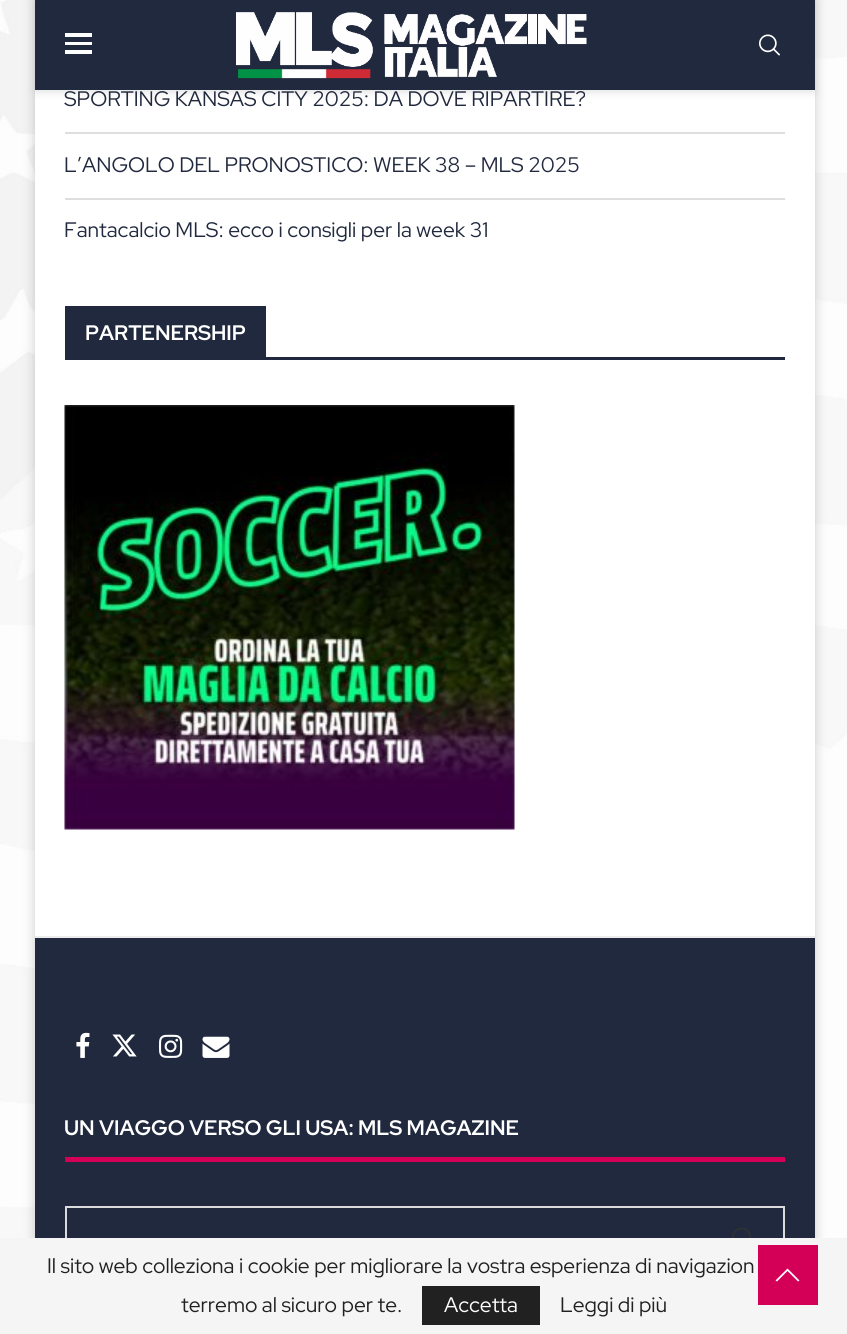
import math
import cairo


def use_color(cr, r, g, b):
  cr.set_source_rgb(r / 255, g / 255, b / 255)

def text(cr, x, y, s, family, size, color, bold=False, italic=False):
  cr.select_font_face(family, cairo.FONT_SLANT_ITALIC if italic else cairo.FONT_SLANT_NORMAL, cairo.FONT_WEIGHT_BOLD if bold else cairo.FONT_WEIGHT_NORMAL)
  cr.set_font_size(size)
  use_color(cr, *color)
  cr.move_to(x, y)
  cr.show_text(s)

def box(cr, x, y, w, h, *color):
  use_color(cr, *color)
  cr.rectangle(x, y, w, h)
  cr.fill()

def round_rect(cr, x, y, w, h, r):
  cr.new_sub_path()
  for i, (u, v) in enumerate([(x + w - r, y + h - r), (x + r, y + h - r), (x + r, y + r), (x + w - r, y + r)]):
    cr.arc(u, v, r, i * math.pi / 2, (i + 1) * math.pi / 2)
  cr.close_path()

def shadow(cr, x, y, w, h, r, blur, alpha):
  cr.push_group_with_content(cairo.CONTENT_ALPHA)
  cr.set_operator(cairo.OPERATOR_SOURCE)
  for i in range(15, -16, -2):
    e = blur * i / 6
    if min(w, h) + 2 * e > 0:
      cr.set_source_rgba(0, 0, 0, alpha * math.erfc((i - 1) / 8.5) / 2)
      round_rect(cr, x - e, y - e, w + 2 * e, h + 2 * e, max(0, min(r + e + blur * .6, min(w, h) / 2 + e)))
      cr.fill()
  cr.mask(cr.pop_group())

def picture(cr, path, x, y, w, h):
  cr.save()
  cr.set_source_surface(cairo.ImageSurface.create_from_png(path), x, y)
  cr.rectangle(x, y, w, h)
  cr.fill()
  cr.restore()

def draw(cr):
  use_color(cr, 255, 255, 255)
  cr.paint()
  picture(cr, "img_01.png", 0, 0, 847, 1238)
  use_color(cr, 0, 0, 0)
  shadow(cr, 35, -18, 780, 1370, 0, 6, 0.2)
  box(cr, 35, 90, 780, 846, 255, 255, 255)
  use_color(cr, 190, 190, 190)
  shadow(cr, 35, 2, 780, 90, 0, 4, 0.46)
  box(cr, 35, 0, 780, 90, 33, 41, 62)
  box(cr, 65, 33, 27, 4, 255, 255, 255)
  box(cr, 65, 42, 27, 3, 255, 255, 255)
  box(cr, 65, 50, 27, 4, 255, 255, 255)
  picture(cr, "img_02.png", 236, 12, 351, 67)
  picture(cr, "img_03.png", 759, 34, 21, 22)
  box(cr, 65, 132, 720, 2, 222, 222, 222)
  box(cr, 65, 198, 720, 2, 222, 222, 222)
  box(cr, 65, 357, 720, 3, 33, 41, 62)
  box(cr, 68, 308, 196, 49, 33, 41, 62)
  box(cr, 65, 306, 201, 2, 33, 41, 62)
  box(cr, 264, 306, 2, 54, 33, 41, 62)
  box(cr, 65, 306, 3, 54, 33, 41, 62)
  picture(cr, "img_04.png", 64, 405, 451, 425)
  box(cr, 35, 938, 780, 300, 33, 41, 62)
  box(cr, 35, 936, 780, 2, 236, 236, 236)
  picture(cr, "img_05.png", 76, 1032, 14, 26)
  picture(cr, "img_06.png", 112, 1034, 25, 23)
  picture(cr, "img_07.png", 159, 1034, 24, 24)
  picture(cr, "img_08.png", 202, 1036, 28, 22)
  box(cr, 65, 1157, 720, 5, 212, 0, 88)
  cr.rectangle(66, 1207, 718, 63)
  use_color(cr, 219, 219, 219)
  cr.stroke()
  picture(cr, "img_09.png", 732, 1228, 19, 10)
  box(cr, 0, 1238, 847, 96, 245, 245, 245)
  box(cr, 422, 1286, 118, 39, 33, 33, 33)
  box(cr, 758, 1245, 60, 60, 212, 0, 88)
  use_color(cr, 255, 255, 255)
  cr.new_path()
  cr.move_to(787.5, 1268.5)
  cr.line_to(775.5, 1280.5)
  cr.line_to(777, 1281.5)
  cr.line_to(787.5, 1271)
  cr.line_to(798, 1281.5)
  cr.line_to(799.5, 1280.5)
  cr.close_path()
  cr.fill()
  text(cr, 64, 106, "SPORTING KANSAS CITY 2025: DA DOVE RIPARTIRE?", "Red Hat Display", 21, (33, 41, 62))
  text(cr, 64, 172, "L’ANGOLO DEL PRONOSTICO: WEEK 38 – MLS 2025", "Red Hat Display", 21, (33, 41, 62))
  text(cr, 64, 237, "Fantacalcio MLS: ecco i consigli per la week 31", "Red Hat Display", 21, (33, 41, 62))
  text(cr, 85, 340, "PARTENERSHIP", "Red Hat Display", 21, (255, 255, 255), bold=True)
  text(cr, 64, 1135, "UN VIAGGO VERSO GLI USA: MLS MAGAZINE", "Red Hat Display", 21, (255, 255, 255), bold=True)
  text(cr, 47, 1273, "Il sito web colleziona i cookie per migliorare la vostra esperienza di navigazion", "Red Hat Display", 21, (33, 33, 33))
  text(cr, 181, 1312, "terremo al sicuro per te.", "Red Hat Display", 21, (33, 33, 33))
  text(cr, 444, 1312, "Accetta", "Red Hat Display", 21, (255, 255, 255))
  text(cr, 560, 1312, "Leggi di più", "Red Hat Display", 21, (33, 33, 33))


surface = cairo.ImageSurface(cairo.FORMAT_RGB24, 847, 1334)
cr = cairo.Context(surface)
options = cairo.FontOptions()
options.set_hint_metrics(cairo.HINT_METRICS_OFF)
options.set_hint_style(cairo.HINT_STYLE_NONE)
cr.set_font_options(options)
cr.set_miter_limit(4)
draw(cr)
surface.write_to_png("out.png")
